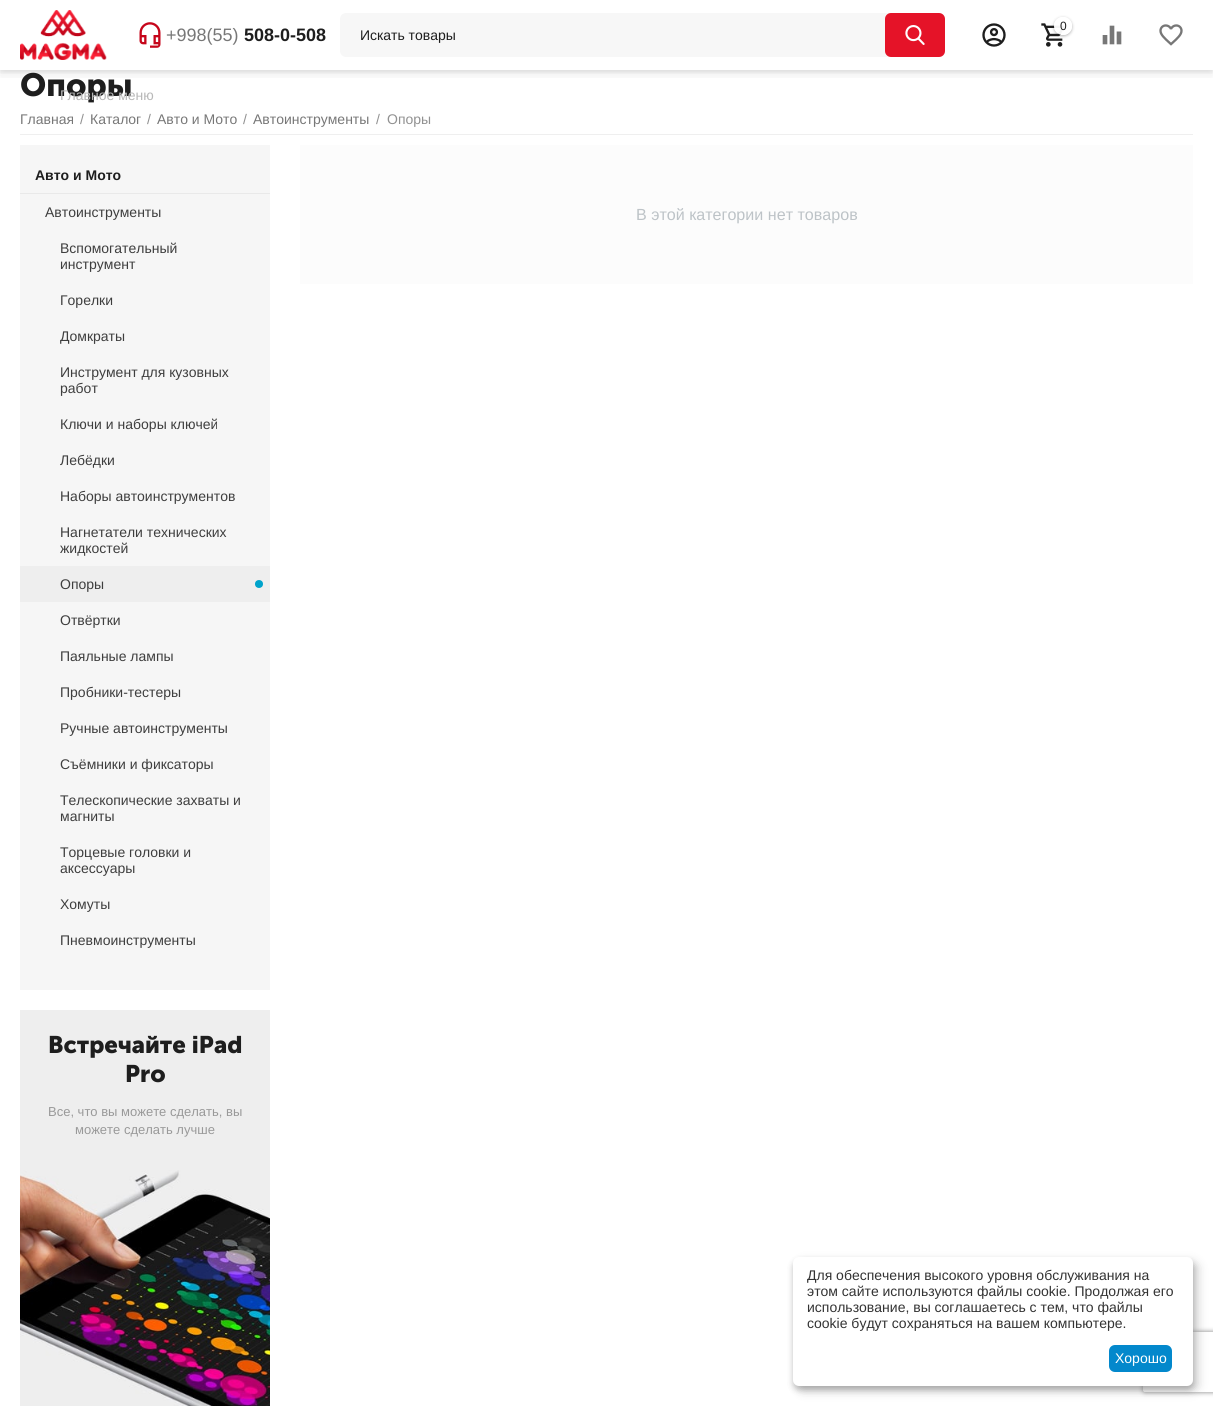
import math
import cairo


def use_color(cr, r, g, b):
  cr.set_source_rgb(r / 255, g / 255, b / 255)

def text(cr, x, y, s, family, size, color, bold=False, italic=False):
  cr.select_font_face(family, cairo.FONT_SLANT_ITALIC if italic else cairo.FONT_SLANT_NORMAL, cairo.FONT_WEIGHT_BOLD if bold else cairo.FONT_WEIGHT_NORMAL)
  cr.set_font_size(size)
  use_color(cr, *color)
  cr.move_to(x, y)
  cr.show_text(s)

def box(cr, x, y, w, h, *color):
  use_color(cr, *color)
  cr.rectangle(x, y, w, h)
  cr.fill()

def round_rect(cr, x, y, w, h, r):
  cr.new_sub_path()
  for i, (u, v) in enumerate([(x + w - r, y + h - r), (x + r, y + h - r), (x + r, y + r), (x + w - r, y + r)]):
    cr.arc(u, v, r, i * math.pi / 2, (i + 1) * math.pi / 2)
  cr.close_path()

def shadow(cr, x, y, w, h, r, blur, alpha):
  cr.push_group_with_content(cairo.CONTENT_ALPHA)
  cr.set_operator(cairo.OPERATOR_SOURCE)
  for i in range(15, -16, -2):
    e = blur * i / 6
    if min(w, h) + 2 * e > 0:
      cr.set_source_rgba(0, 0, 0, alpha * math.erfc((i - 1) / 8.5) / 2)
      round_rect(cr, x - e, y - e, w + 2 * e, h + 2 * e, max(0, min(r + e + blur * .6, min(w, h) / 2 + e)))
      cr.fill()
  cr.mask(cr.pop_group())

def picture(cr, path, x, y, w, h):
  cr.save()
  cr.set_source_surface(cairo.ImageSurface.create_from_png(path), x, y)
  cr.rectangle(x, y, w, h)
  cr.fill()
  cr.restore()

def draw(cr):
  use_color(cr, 255, 255, 255)
  cr.paint()
  cr.save()
  cr.rectangle(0, 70, 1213, 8)
  cr.clip()
  use_color(cr, 0, 0, 0)
  shadow(cr, 0, 7, 1213, 70, 0, 3.5, 0.05)
  cr.restore()
  cr.save()
  cr.rectangle(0, 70, 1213, 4)
  cr.clip()
  use_color(cr, 0, 0, 0)
  shadow(cr, 0, 2, 1213, 70, 0, 2.5, 0.1)
  cr.restore()
  picture(cr, "img_01.png", 20, 10, 87, 50)
  picture(cr, "img_02.png", 982, 23, 24, 24)
  picture(cr, "img_03.png", 1041, 23, 24, 24)
  cr.save()
  cr.set_fill_rule(cairo.FILL_RULE_EVEN_ODD)
  cr.new_path()
  cr.move_to(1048, 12)
  cr.line_to(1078, 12)
  cr.line_to(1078, 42)
  cr.line_to(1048, 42)
  cr.close_path()
  cr.move_to(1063, 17)
  cr.curve_to(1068, 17, 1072, 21, 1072, 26)
  cr.curve_to(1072, 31, 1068, 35, 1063, 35)
  cr.curve_to(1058, 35, 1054, 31, 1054, 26)
  cr.curve_to(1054, 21, 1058, 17, 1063, 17)
  cr.close_path()
  cr.clip()
  use_color(cr, 30, 30, 30)
  shadow(cr, 1054, 18, 18, 18, 9, 1.5, 0.35)
  cr.restore()
  cr.set_source_rgba(1, 1, 1, 0.95)
  cr.arc(1063, 26, 9, 0, 2 * math.pi)
  cr.fill()
  picture(cr, "img_04.png", 1102, 25, 20, 20)
  picture(cr, "img_05.png", 1159, 24, 24, 22)
  picture(cr, "img_06.png", 139, 22, 22, 26)
  use_color(cr, 247, 247, 247)
  round_rect(cr, 340, 13, 605, 44, 6)
  cr.fill()
  use_color(cr, 229, 19, 40)
  round_rect(cr, 885, 13, 60, 44, 6)
  cr.fill()
  picture(cr, "img_07.png", 905, 25, 20, 20)
  box(cr, 20, 134, 1173, 1, 239, 239, 239)
  box(cr, 20, 145, 250, 845, 246, 246, 246)
  box(cr, 20, 193, 250, 1, 233, 233, 233)
  box(cr, 20, 566, 250, 36, 238, 238, 238)
  use_color(cr, 0, 163, 203)
  cr.arc(259, 584, 4, 0, 2 * math.pi)
  cr.fill()
  picture(cr, "img_08.png", 20, 1010, 250, 396)
  box(cr, 300, 145, 893, 139, 252, 252, 252)
  use_color(cr, 0, 0, 0)
  shadow(cr, 798, 1262, 400, 129, 6, 5, 0.19)
  shadow(cr, 793, 1261, 400, 129, 6, 3, 0.2)
  cr.save()
  cr.set_fill_rule(cairo.FILL_RULE_EVEN_ODD)
  cr.new_path()
  cr.move_to(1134, 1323)
  cr.line_to(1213, 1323)
  cr.line_to(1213, 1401)
  cr.line_to(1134, 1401)
  cr.close_path()
  cr.move_to(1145, 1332)
  cr.line_to(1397, 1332)
  cr.curve_to(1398, 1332, 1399, 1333, 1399, 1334)
  cr.line_to(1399, 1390)
  cr.curve_to(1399, 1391, 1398, 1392, 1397, 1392)
  cr.line_to(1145, 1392)
  cr.curve_to(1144, 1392, 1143, 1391, 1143, 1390)
  cr.line_to(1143, 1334)
  cr.curve_to(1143, 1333, 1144, 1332, 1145, 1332)
  cr.close_path()
  cr.clip()
  use_color(cr, 128, 128, 128)
  shadow(cr, 1143, 1332, 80, 60, 2, 2.5, 1)
  cr.restore()
  use_color(cr, 255, 255, 255)
  round_rect(cr, 793, 1257, 400, 129, 6)
  cr.fill()
  use_color(cr, 3, 136, 204)
  round_rect(cr, 1109, 1345, 63, 27, 6)
  cr.fill()
  text(cr, 1060, 30, "0", "Liberation Sans", 12, (30, 30, 30))
  text(cr, 166, 41, "+998(55)", "Liberation Sans", 18, (119, 119, 119))
  text(cr, 244, 41, "508-0-508", "Liberation Sans", 18, (30, 30, 30), bold=True)
  text(cr, 360, 40, "Искать товары", "Liberation Sans", 14, (30, 30, 30))
  text(cr, 20, 96, "Опоры", "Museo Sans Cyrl", 32, (30, 30, 30), bold=True)
  text(cr, 60, 100, "Главное меню", "Liberation Sans", 14, (184, 184, 184))
  text(cr, 20, 124, "Главная", "Liberation Sans", 14, (119, 119, 119))
  text(cr, 80, 124, "/", "Liberation Sans", 14, (145, 145, 145))
  text(cr, 90, 124, "Каталог", "Liberation Sans", 14, (119, 119, 119))
  text(cr, 147, 124, "/", "Liberation Sans", 14, (145, 145, 145))
  text(cr, 157, 124, "Авто и Мото", "Liberation Sans", 14, (119, 119, 119))
  text(cr, 243, 124, "/", "Liberation Sans", 14, (145, 145, 145))
  text(cr, 253, 124, "Автоинструменты", "Liberation Sans", 14, (119, 119, 119))
  text(cr, 376, 124, "/", "Liberation Sans", 14, (145, 145, 145))
  text(cr, 387, 124, "Опоры", "Liberation Sans", 14, (145, 145, 145))
  text(cr, 35, 180, "Авто и Мото", "Liberation Sans", 14, (30, 30, 30), bold=True)
  text(cr, 45, 217, "Автоинструменты", "Liberation Sans", 14, (62, 62, 62))
  text(cr, 60, 253, "Вспомогательный", "Liberation Sans", 14, (62, 62, 62))
  text(cr, 60, 269, "инструмент", "Liberation Sans", 14, (62, 62, 62))
  text(cr, 60, 305, "Горелки", "Liberation Sans", 14, (62, 62, 62))
  text(cr, 60, 341, "Домкраты", "Liberation Sans", 14, (62, 62, 62))
  text(cr, 60, 377, "Инструмент для кузовных", "Liberation Sans", 14, (62, 62, 62))
  text(cr, 60, 393, "работ", "Liberation Sans", 14, (62, 62, 62))
  text(cr, 60, 429, "Ключи и наборы ключей", "Liberation Sans", 14, (62, 62, 62))
  text(cr, 60, 465, "Лебёдки", "Liberation Sans", 14, (62, 62, 62))
  text(cr, 60, 501, "Наборы автоинструментов", "Liberation Sans", 14, (62, 62, 62))
  text(cr, 60, 537, "Нагнетатели технических", "Liberation Sans", 14, (62, 62, 62))
  text(cr, 60, 553, "жидкостей", "Liberation Sans", 14, (62, 62, 62))
  text(cr, 60, 589, "Опоры", "Liberation Sans", 14, (62, 62, 62))
  text(cr, 60, 625, "Отвёртки", "Liberation Sans", 14, (62, 62, 62))
  text(cr, 60, 661, "Паяльные лампы", "Liberation Sans", 14, (62, 62, 62))
  text(cr, 60, 697, "Пробники-тестеры", "Liberation Sans", 14, (62, 62, 62))
  text(cr, 60, 733, "Ручные автоинструменты", "Liberation Sans", 14, (62, 62, 62))
  text(cr, 60, 769, "Съёмники и фиксаторы", "Liberation Sans", 14, (62, 62, 62))
  text(cr, 60, 805, "Телескопические захваты и", "Liberation Sans", 14, (62, 62, 62))
  text(cr, 60, 821, "магниты", "Liberation Sans", 14, (62, 62, 62))
  text(cr, 60, 857, "Торцевые головки и", "Liberation Sans", 14, (62, 62, 62))
  text(cr, 60, 873, "аксессуары", "Liberation Sans", 14, (62, 62, 62))
  text(cr, 60, 909, "Хомуты", "Liberation Sans", 14, (62, 62, 62))
  text(cr, 60, 945, "Пневмоинструменты", "Liberation Sans", 14, (62, 62, 62))
  text(cr, 48, 1053, "Встречайте iPad", "Museo Sans Cyrl", 24, (30, 30, 30), bold=True)
  text(cr, 125, 1082, "Pro", "Museo Sans Cyrl", 24, (30, 30, 30), bold=True)
  text(cr, 48, 1116, "Все, что вы можете сделать, вы", "Liberation Sans", 13, (153, 153, 153))
  text(cr, 75, 1134, "можете сделать лучше", "Liberation Sans", 13, (153, 153, 153))
  text(cr, 636, 220, "В этой категории нет товаров", "Liberation Sans", 16.1, (189, 195, 199))
  text(cr, 807, 1280, "Для обеспечения высокого уровня обслуживания на", "Liberation Sans", 14, (51, 51, 51))
  text(cr, 807, 1296, "этом сайте используются файлы cookie. Продолжая его", "Liberation Sans", 14, (51, 51, 51))
  text(cr, 807, 1312, "использование, вы соглашаетесь с тем, что файлы", "Liberation Sans", 14, (51, 51, 51))
  text(cr, 807, 1328, "cookie будут сохраняться на вашем компьютере.", "Liberation Sans", 14, (51, 51, 51))
  text(cr, 1115, 1363, "Хорошо", "Liberation Sans", 14, (255, 255, 255))


surface = cairo.ImageSurface(cairo.FORMAT_RGB24, 1213, 1406)
cr = cairo.Context(surface)
options = cairo.FontOptions()
options.set_hint_metrics(cairo.HINT_METRICS_OFF)
options.set_hint_style(cairo.HINT_STYLE_NONE)
cr.set_font_options(options)
cr.set_miter_limit(4)
draw(cr)
surface.write_to_png("out.png")
